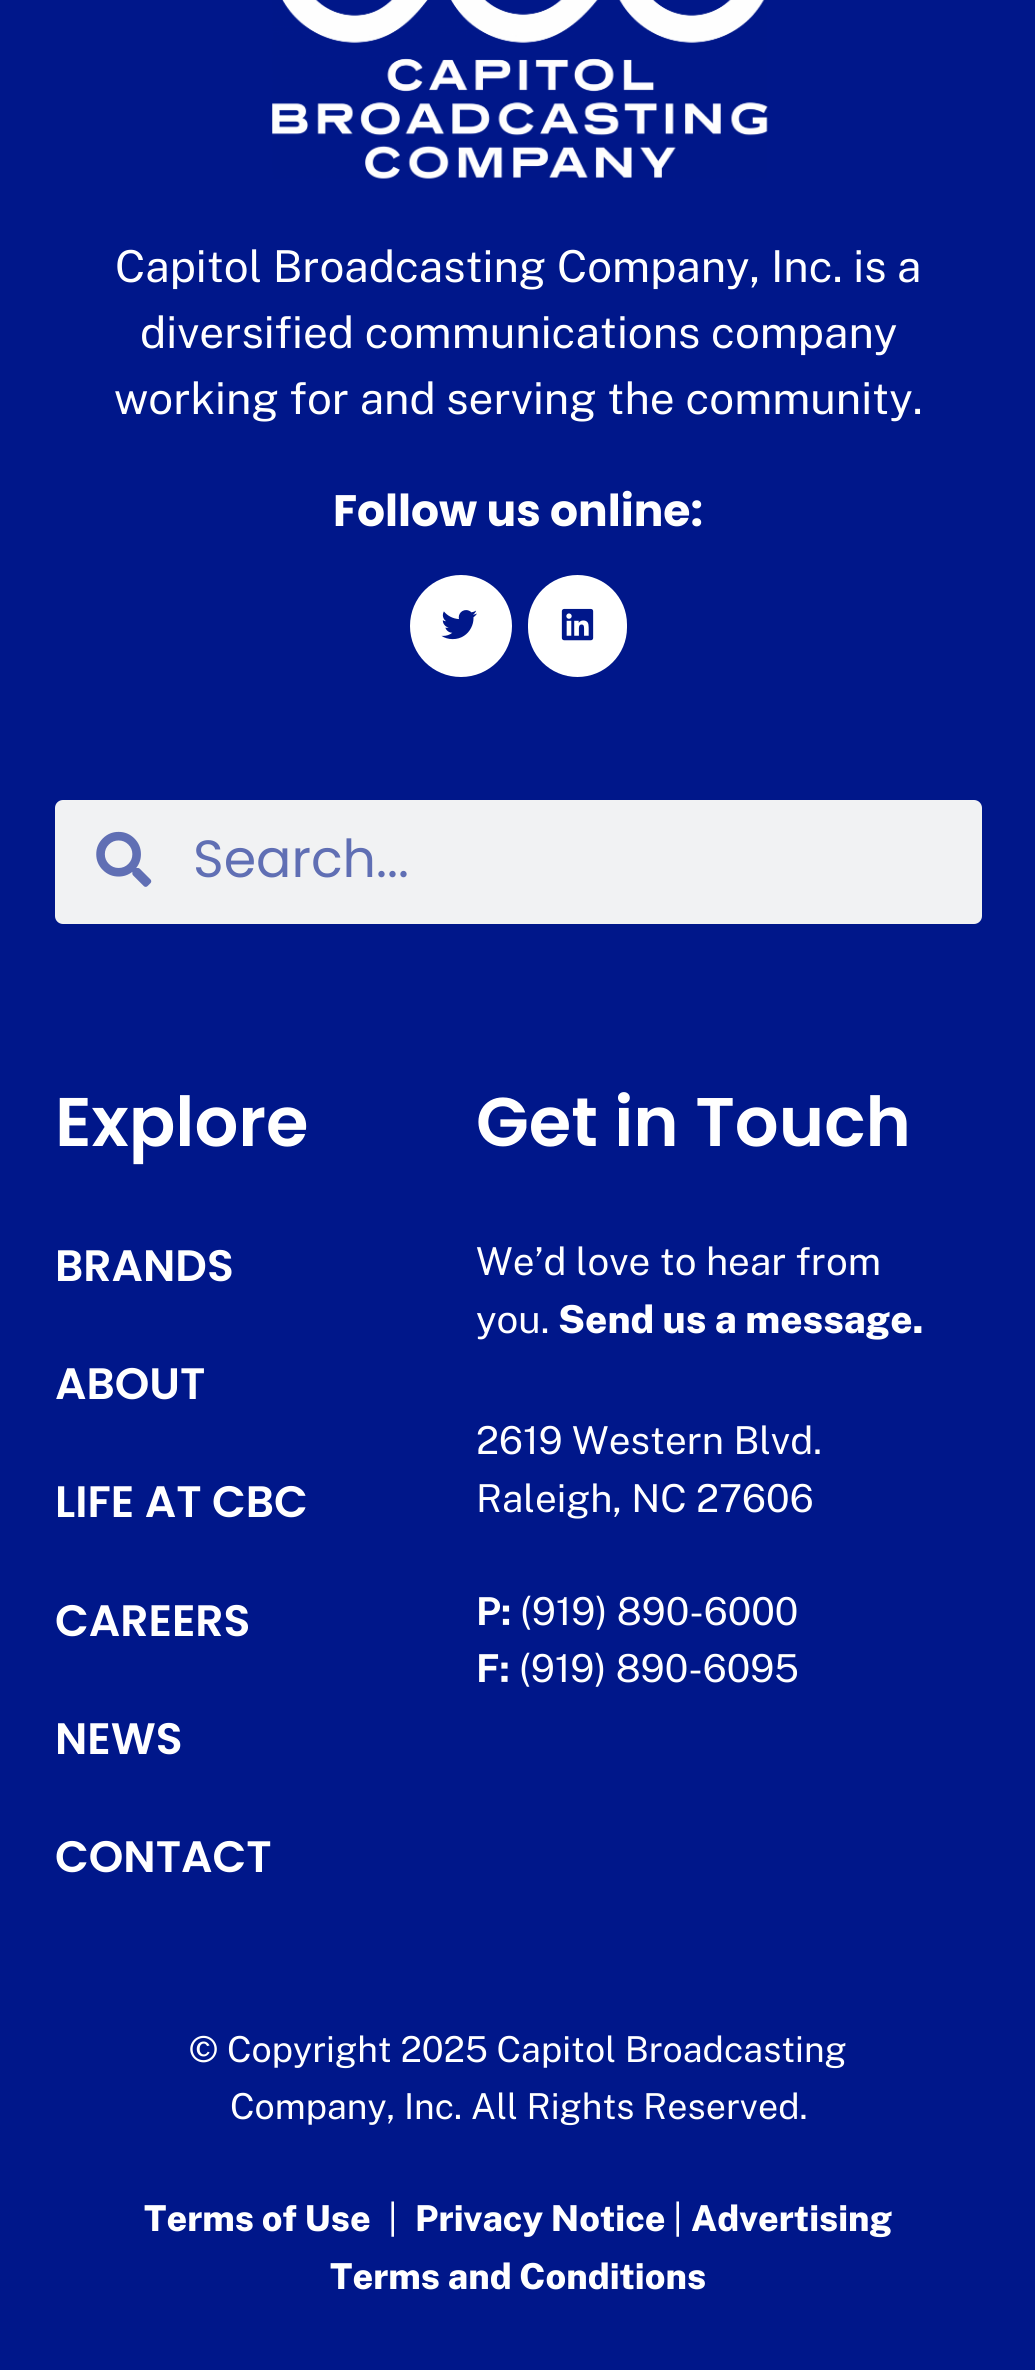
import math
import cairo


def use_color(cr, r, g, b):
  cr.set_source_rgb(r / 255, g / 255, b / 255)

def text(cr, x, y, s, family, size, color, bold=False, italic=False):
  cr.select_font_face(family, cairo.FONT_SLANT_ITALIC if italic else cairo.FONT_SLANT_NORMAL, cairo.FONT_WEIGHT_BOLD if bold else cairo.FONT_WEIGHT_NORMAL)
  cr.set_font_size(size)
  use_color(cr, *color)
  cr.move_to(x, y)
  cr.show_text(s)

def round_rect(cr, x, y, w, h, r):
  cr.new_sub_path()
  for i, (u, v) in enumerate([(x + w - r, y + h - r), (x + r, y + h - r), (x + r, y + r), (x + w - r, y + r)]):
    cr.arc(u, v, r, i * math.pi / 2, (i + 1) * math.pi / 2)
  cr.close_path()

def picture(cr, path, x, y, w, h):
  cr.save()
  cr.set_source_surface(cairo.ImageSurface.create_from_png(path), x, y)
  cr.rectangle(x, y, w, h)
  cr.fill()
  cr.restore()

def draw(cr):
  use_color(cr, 0, 23, 138)
  cr.paint()
  picture(cr, "img_01.png", 272, 0, 496, 179)
  use_color(cr, 255, 255, 255)
  cr.arc(461, 626, 51, 0, 2 * math.pi)
  cr.fill()
  picture(cr, "img_02.png", 441, 610, 36, 30)
  round_rect(cr, 528, 575, 99, 102, 49.5)
  cr.fill()
  picture(cr, "img_03.png", 561, 608, 33, 33)
  use_color(cr, 241, 242, 243)
  round_rect(cr, 55, 800, 927, 124, 8)
  cr.fill()
  picture(cr, "img_04.png", 96, 831, 56, 56)
  text(cr, 115, 282, "Capitol Broadcasting Company, Inc. is a", "Public Sans", 44, (255, 255, 255))
  text(cr, 140, 348, "diversified communications company", "Public Sans", 44, (255, 255, 255))
  text(cr, 114, 414, "working for and serving the community.", "Public Sans", 44, (255, 255, 255))
  text(cr, 333, 526, "Follow us online:", "Poppins", 44, (255, 255, 255), bold=True)
  text(cr, 193, 877, "Search...", "Poppins", 52.25, (96, 111, 180))
  text(cr, 55, 1146, "Explore", "Poppins SemiBold", 68.75, (255, 255, 255))
  text(cr, 55, 1281, "BRANDS", "Poppins SemiBold", 44, (255, 255, 255))
  text(cr, 55, 1399, "ABOUT", "Poppins SemiBold", 44, (255, 255, 255))
  text(cr, 55, 1517, "LIFE AT CBC", "Poppins SemiBold", 44, (255, 255, 255))
  text(cr, 55, 1636, "CAREERS", "Poppins SemiBold", 44, (255, 255, 255))
  text(cr, 55, 1754, "NEWS", "Poppins SemiBold", 44, (255, 255, 255))
  text(cr, 55, 1872, "CONTACT", "Poppins SemiBold", 44, (255, 255, 255))
  text(cr, 476, 1146, "Get in Touch", "Poppins SemiBold", 68.75, (255, 255, 255))
  text(cr, 476, 1275, "We’d love to hear from", "Public Sans", 38.5, (255, 255, 255))
  text(cr, 476, 1333, "you.", "Public Sans", 38.5, (255, 255, 255))
  text(cr, 558, 1333, "Send us a message.", "Public Sans ExtraBold", 38.5, (255, 255, 255))
  text(cr, 476, 1454, "2619 Western Blvd.", "Public Sans", 38.5, (255, 255, 255))
  text(cr, 476, 1512, "Raleigh, NC 27606", "Public Sans", 38.5, (255, 255, 255))
  text(cr, 476, 1625, "P:", "Public Sans", 38.5, (255, 255, 255), bold=True)
  text(cr, 520, 1625, "(919) 890-6000", "Public Sans", 38.5, (255, 255, 255))
  text(cr, 476, 1682, "F:", "Public Sans", 38.5, (255, 255, 255), bold=True)
  text(cr, 519, 1682, "(919) 890-6095", "Public Sans", 38.5, (255, 255, 255))
  text(cr, 189, 2062, "© Copyright 2025 Capitol Broadcasting", "Public Sans", 35.75, (255, 255, 255))
  text(cr, 230, 2119, "Company, Inc. All Rights Reserved.", "Public Sans", 35.75, (255, 255, 255))
  text(cr, 144, 2231, "Terms of Use", "Public Sans ExtraBold", 35.75, (255, 255, 255))
  text(cr, 388, 2231, "|", "Public Sans", 35.75, (255, 255, 255))
  text(cr, 415, 2231, "Privacy Notice", "Public Sans ExtraBold", 35.75, (255, 255, 255))
  text(cr, 673, 2231, "|", "Public Sans", 35.75, (255, 255, 255))
  text(cr, 691, 2231, "Advertising", "Public Sans ExtraBold", 35.75, (255, 255, 255))
  text(cr, 330, 2289, "Terms and Conditions", "Public Sans ExtraBold", 35.75, (255, 255, 255))


surface = cairo.ImageSurface(cairo.FORMAT_RGB24, 1035, 2370)
cr = cairo.Context(surface)
options = cairo.FontOptions()
options.set_hint_metrics(cairo.HINT_METRICS_OFF)
options.set_hint_style(cairo.HINT_STYLE_NONE)
cr.set_font_options(options)
cr.set_miter_limit(4)
draw(cr)
surface.write_to_png("out.png")
